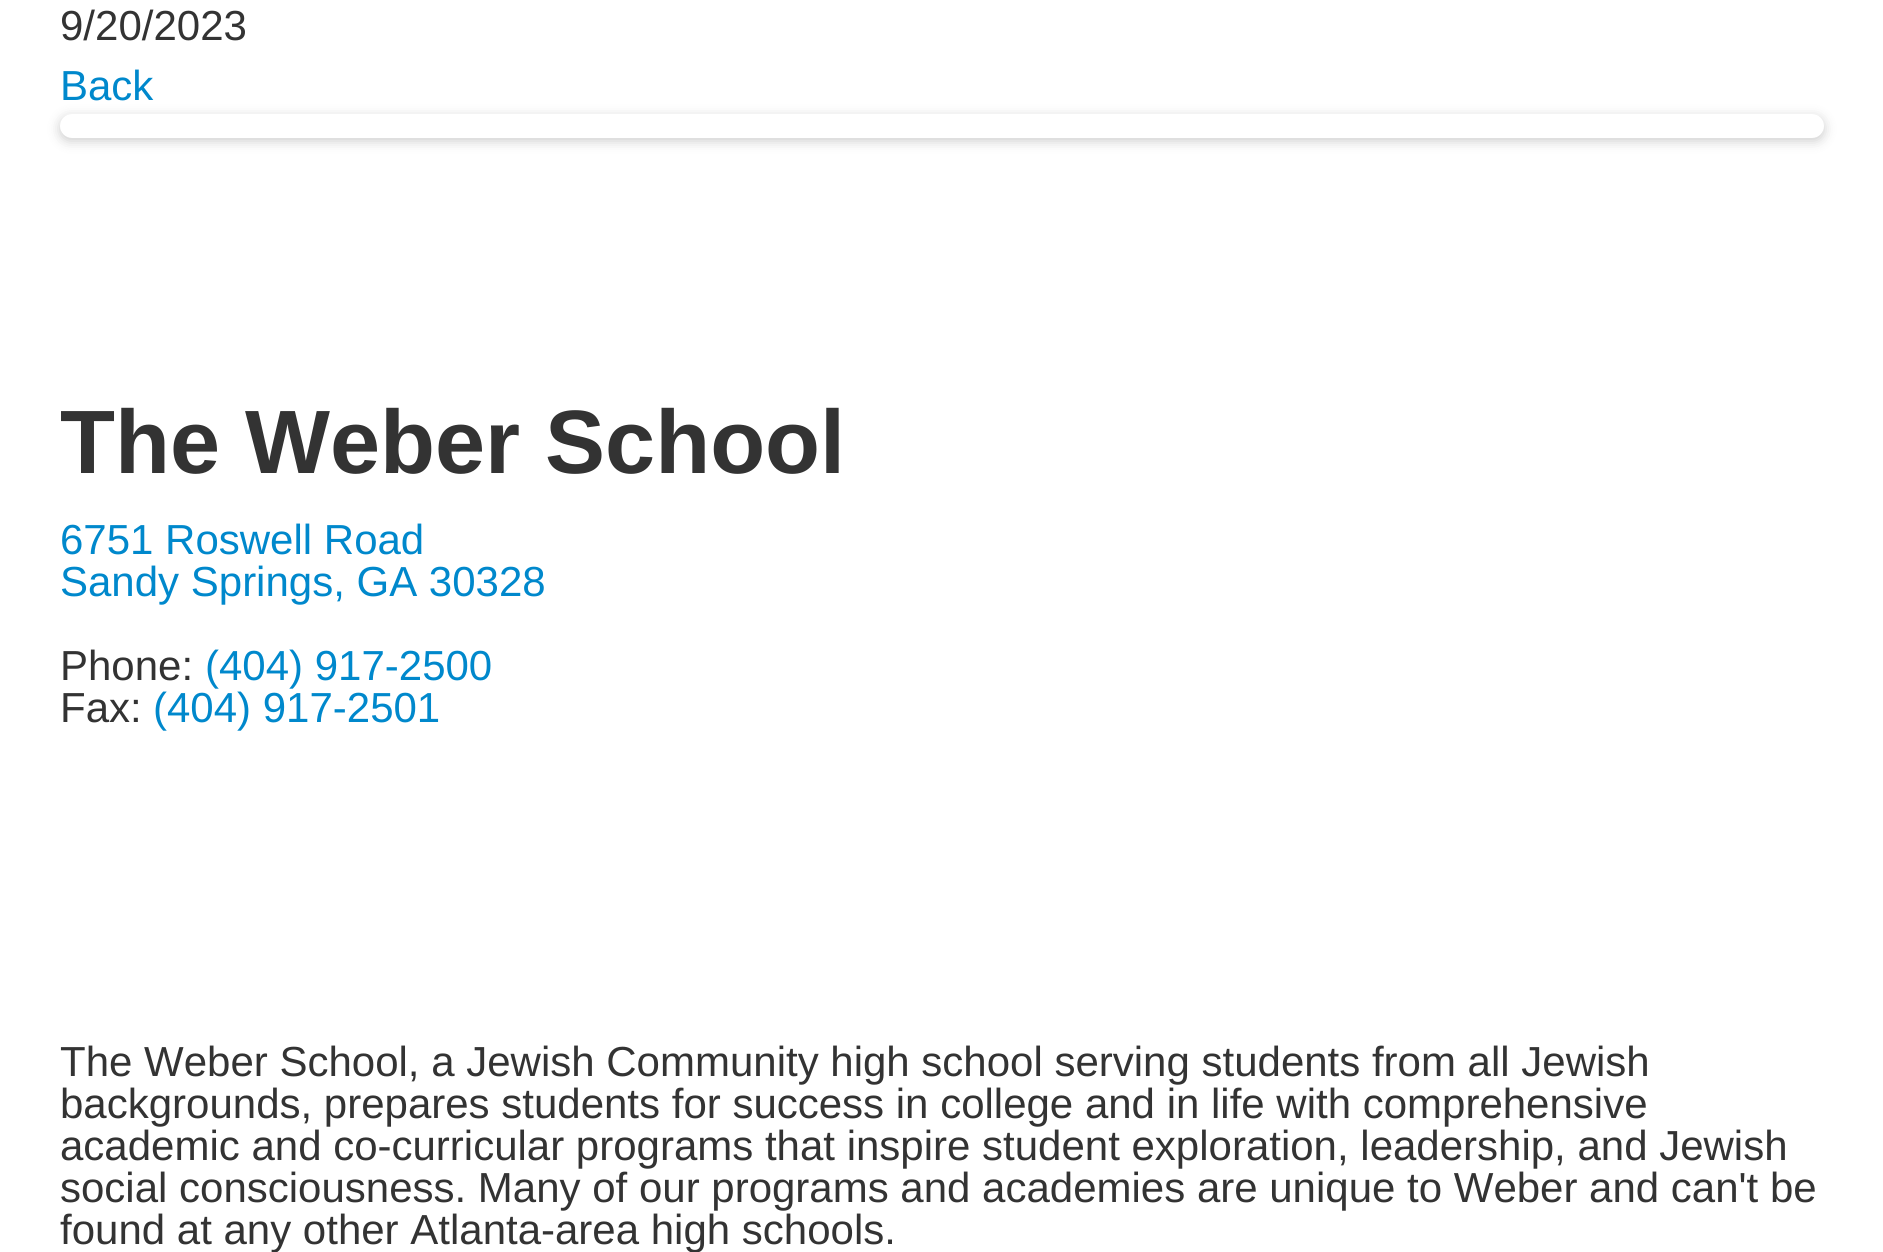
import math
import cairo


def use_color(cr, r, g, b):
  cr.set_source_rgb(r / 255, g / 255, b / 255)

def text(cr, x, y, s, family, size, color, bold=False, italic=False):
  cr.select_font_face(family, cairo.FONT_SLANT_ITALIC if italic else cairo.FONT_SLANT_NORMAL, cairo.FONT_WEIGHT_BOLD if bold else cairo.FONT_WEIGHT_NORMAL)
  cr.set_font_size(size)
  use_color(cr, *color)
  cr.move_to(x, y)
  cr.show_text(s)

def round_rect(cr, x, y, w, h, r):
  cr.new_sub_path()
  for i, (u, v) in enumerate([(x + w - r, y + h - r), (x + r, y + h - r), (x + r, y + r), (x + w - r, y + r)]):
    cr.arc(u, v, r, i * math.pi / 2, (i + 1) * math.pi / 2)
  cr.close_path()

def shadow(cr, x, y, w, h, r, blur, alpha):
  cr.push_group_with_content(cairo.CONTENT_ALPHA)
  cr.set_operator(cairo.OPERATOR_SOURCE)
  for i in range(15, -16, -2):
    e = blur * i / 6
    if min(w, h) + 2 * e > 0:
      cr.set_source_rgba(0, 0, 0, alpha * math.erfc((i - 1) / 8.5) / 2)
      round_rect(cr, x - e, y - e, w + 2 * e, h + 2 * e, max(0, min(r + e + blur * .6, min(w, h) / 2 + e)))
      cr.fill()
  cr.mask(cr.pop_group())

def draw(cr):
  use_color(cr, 255, 255, 255)
  cr.paint()
  use_color(cr, 0, 0, 0)
  shadow(cr, 60, 117, 1764, 24, 12, 6, 0.2)
  use_color(cr, 255, 255, 255)
  round_rect(cr, 60, 114, 1764, 24, 12)
  cr.fill()
  text(cr, 60, 40, "9/20/2023", "Liberation Sans", 42, (51, 51, 51))
  text(cr, 60, 100, "Back", "Liberation Sans", 42, (0, 136, 204))
  text(cr, 60, 473, "The Weber School", "Liberation Sans", 90, (51, 51, 51), bold=True)
  text(cr, 60, 554, "6751 Roswell Road", "Liberation Sans", 42, (0, 136, 204))
  text(cr, 60, 596, "Sandy Springs, GA 30328", "Liberation Sans", 42, (0, 136, 204))
  text(cr, 60, 680, "Phone:", "Liberation Sans", 42, (51, 51, 51))
  text(cr, 205, 680, "(404) 917-2500", "Liberation Sans", 42, (0, 136, 204))
  text(cr, 60, 722, "Fax:", "Liberation Sans", 42, (51, 51, 51))
  text(cr, 153, 722, "(404) 917-2501", "Liberation Sans", 42, (0, 136, 204))
  text(cr, 60, 1076, "The Weber School, a Jewish Community high school serving students from all Jewish", "Liberation Sans", 42, (51, 51, 51))
  text(cr, 60, 1118, "backgrounds, prepares students for success in college and in life with comprehensive", "Liberation Sans", 42, (51, 51, 51))
  text(cr, 60, 1160, "academic and co-curricular programs that inspire student exploration, leadership, and Jewish", "Liberation Sans", 42, (51, 51, 51))
  text(cr, 60, 1202, "social consciousness. Many of our programs and academies are unique to Weber and can't be", "Liberation Sans", 42, (51, 51, 51))
  text(cr, 60, 1244, "found at any other Atlanta-area high schools.", "Liberation Sans", 42, (51, 51, 51))


surface = cairo.ImageSurface(cairo.FORMAT_RGB24, 1883, 1252)
cr = cairo.Context(surface)
options = cairo.FontOptions()
options.set_hint_metrics(cairo.HINT_METRICS_OFF)
options.set_hint_style(cairo.HINT_STYLE_NONE)
cr.set_font_options(options)
cr.set_miter_limit(4)
draw(cr)
surface.write_to_png("out.png")
